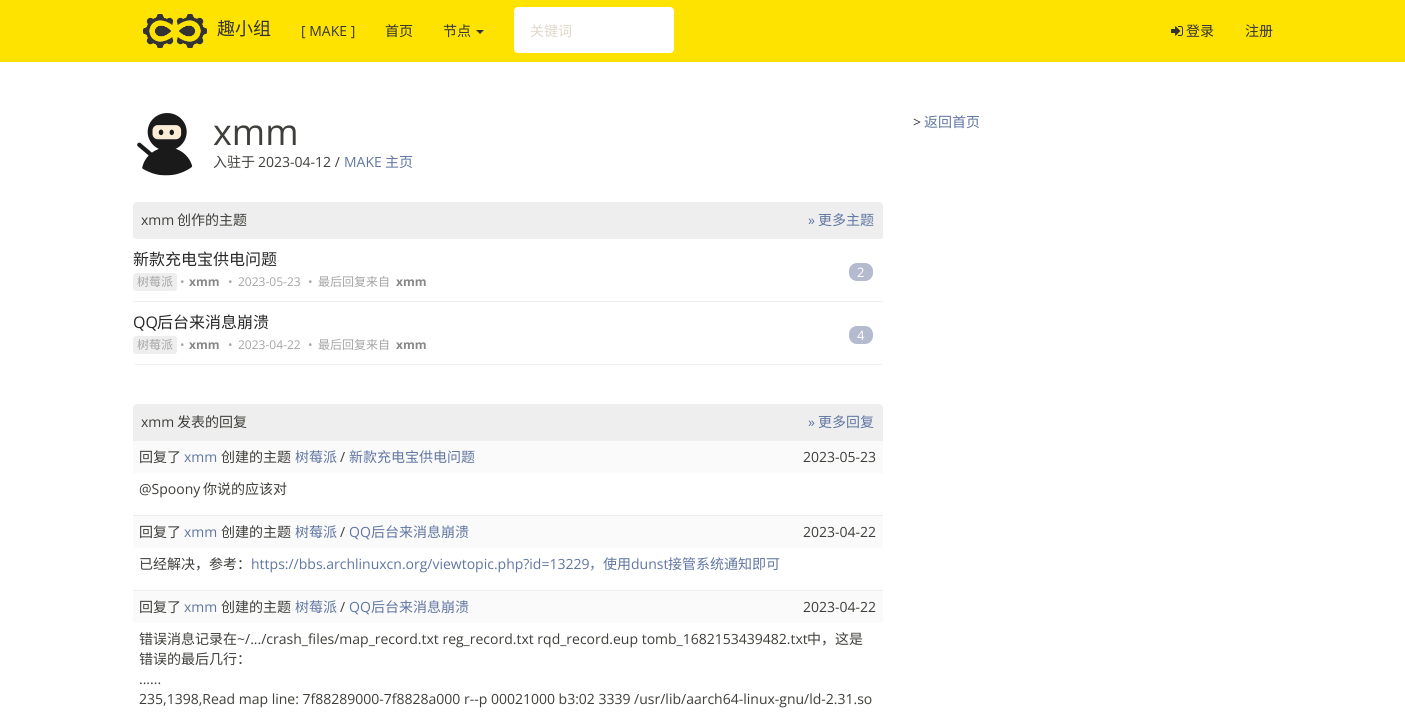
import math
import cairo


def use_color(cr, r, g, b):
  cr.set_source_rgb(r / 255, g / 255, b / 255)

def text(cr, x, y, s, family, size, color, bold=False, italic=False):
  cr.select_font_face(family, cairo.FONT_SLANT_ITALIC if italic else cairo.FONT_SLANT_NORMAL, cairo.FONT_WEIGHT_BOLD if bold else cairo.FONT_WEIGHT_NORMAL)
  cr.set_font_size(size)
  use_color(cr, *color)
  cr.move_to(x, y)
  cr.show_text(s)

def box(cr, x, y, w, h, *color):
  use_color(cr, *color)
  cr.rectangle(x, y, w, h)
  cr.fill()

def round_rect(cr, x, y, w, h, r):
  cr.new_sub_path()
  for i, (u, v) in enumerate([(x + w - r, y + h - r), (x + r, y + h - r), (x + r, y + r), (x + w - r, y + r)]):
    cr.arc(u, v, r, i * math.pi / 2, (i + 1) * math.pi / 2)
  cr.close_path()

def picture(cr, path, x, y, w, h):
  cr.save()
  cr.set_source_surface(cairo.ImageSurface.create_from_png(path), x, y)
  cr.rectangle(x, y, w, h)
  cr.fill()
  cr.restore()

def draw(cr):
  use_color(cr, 255, 255, 255)
  cr.paint()
  box(cr, 0, 0, 1405, 62, 255, 227, 0)
  picture(cr, "img_01.png", 143, 14, 64, 34)
  use_color(cr, 51, 51, 51)
  cr.new_path()
  cr.move_to(476, 30)
  cr.line_to(484, 30)
  cr.line_to(480, 34)
  cr.close_path()
  cr.fill()
  use_color(cr, 255, 255, 255)
  round_rect(cr, 514, 7, 160, 46, 4)
  cr.fill()
  picture(cr, "img_02.png", 1171, 26, 12, 10)
  picture(cr, "img_03.png", 137, 113, 56, 63)
  use_color(cr, 238, 238, 238)
  cr.new_path()
  cr.move_to(137, 202)
  cr.line_to(879, 202)
  cr.curve_to(881, 202, 883, 204, 883, 206)
  cr.line_to(883, 238)
  cr.line_to(133, 238)
  cr.line_to(133, 206)
  cr.curve_to(133, 204, 135, 202, 137, 202)
  cr.close_path()
  cr.fill()
  box(cr, 135, 238, 747, 1, 238, 238, 238)
  box(cr, 133, 301, 750, 1, 238, 238, 238)
  round_rect(cr, 133, 273, 44, 18, 3)
  cr.fill()
  use_color(cr, 181, 187, 207)
  round_rect(cr, 849, 263, 24, 18, 8)
  cr.fill()
  box(cr, 135, 364, 747, 1, 238, 238, 238)
  round_rect(cr, 133, 336, 44, 18, 3)
  cr.fill()
  use_color(cr, 181, 187, 207)
  round_rect(cr, 849, 326, 24, 18, 8)
  cr.fill()
  use_color(cr, 238, 238, 238)
  cr.new_path()
  cr.move_to(137, 404)
  cr.line_to(879, 404)
  cr.curve_to(881, 404, 883, 406, 883, 408)
  cr.line_to(883, 440)
  cr.line_to(133, 440)
  cr.line_to(133, 408)
  cr.curve_to(133, 406, 135, 404, 137, 404)
  cr.close_path()
  cr.fill()
  box(cr, 133, 441, 750, 32, 250, 250, 250)
  box(cr, 133, 440, 750, 1, 238, 238, 238)
  box(cr, 133, 516, 750, 32, 250, 250, 250)
  box(cr, 133, 515, 750, 1, 238, 238, 238)
  box(cr, 133, 591, 750, 32, 250, 250, 250)
  box(cr, 133, 590, 750, 1, 238, 238, 238)
  text(cr, 217, 35, "趣小组", "Noto Sans CJK SC", 18, (51, 51, 51))
  text(cr, 301, 36, "[ MAKE ]", "Open Sans", 14, (51, 51, 51))
  text(cr, 385, 36, "首页", "Noto Sans CJK SC", 14, (51, 51, 51))
  text(cr, 443, 36, "节点", "Noto Sans CJK SC", 14, (51, 51, 51))
  text(cr, 530, 36, "关键词", "Noto Sans CJK SC", 14, (223, 215, 202))
  text(cr, 1186, 36, "登录", "Noto Sans CJK SC", 14, (51, 51, 51))
  text(cr, 1245, 36, "注册", "Noto Sans CJK SC", 14, (51, 51, 51))
  text(cr, 913, 127, ">", "Open Sans", 14, (62, 63, 58))
  text(cr, 924, 127, "返回首页", "Noto Sans CJK SC", 14, (96, 118, 161))
  text(cr, 213, 145, "xmm", "Open Sans", 36, (62, 63, 58))
  text(cr, 213, 167, "入驻于", "Noto Sans CJK SC", 14, (62, 63, 58))
  text(cr, 258, 167, "2023-04-12 /", "Open Sans", 14, (62, 63, 58))
  text(cr, 344, 167, "MAKE", "Open Sans", 14, (96, 118, 161))
  text(cr, 385, 167, "主页", "Noto Sans CJK SC", 14, (96, 118, 161))
  text(cr, 141, 225, "xmm", "Open Sans", 14, (62, 63, 58))
  text(cr, 177, 225, "创作的主题", "Noto Sans CJK SC", 14, (62, 63, 58))
  text(cr, 808, 225, "»", "Open Sans", 14, (96, 118, 161))
  text(cr, 818, 225, "更多主题", "Noto Sans CJK SC", 14, (96, 118, 161))
  text(cr, 133, 265, "新款充电宝供电问题", "Noto Sans CJK SC", 16, (40, 40, 40))
  text(cr, 137, 286, "树莓派", "Noto Sans CJK SC", 12, (165, 165, 165))
  text(cr, 180, 286, "•", "Open Sans", 12, (165, 165, 165))
  text(cr, 189, 286, "xmm", "Open Sans", 12, (136, 136, 136), bold=True)
  text(cr, 228, 286, "•", "Open Sans", 12, (165, 165, 165))
  text(cr, 238, 286, "2023-05-23", "Open Sans", 12, (165, 165, 165))
  text(cr, 308, 286, "•", "Open Sans", 12, (165, 165, 165))
  text(cr, 318, 286, "最后回复来自", "Noto Sans CJK SC", 12, (165, 165, 165))
  text(cr, 396, 286, "xmm", "Open Sans", 12, (136, 136, 136), bold=True)
  text(cr, 857, 277, "2", "Open Sans", 13, (255, 255, 255))
  text(cr, 133, 328, "QQ", "Open Sans", 16, (40, 40, 40))
  text(cr, 157, 328, "后台来消息崩溃", "Noto Sans CJK SC", 16, (40, 40, 40))
  text(cr, 137, 349, "树莓派", "Noto Sans CJK SC", 12, (165, 165, 165))
  text(cr, 180, 349, "•", "Open Sans", 12, (165, 165, 165))
  text(cr, 189, 349, "xmm", "Open Sans", 12, (136, 136, 136), bold=True)
  text(cr, 228, 349, "•", "Open Sans", 12, (165, 165, 165))
  text(cr, 238, 349, "2023-04-22", "Open Sans", 12, (165, 165, 165))
  text(cr, 308, 349, "•", "Open Sans", 12, (165, 165, 165))
  text(cr, 318, 349, "最后回复来自", "Noto Sans CJK SC", 12, (165, 165, 165))
  text(cr, 396, 349, "xmm", "Open Sans", 12, (136, 136, 136), bold=True)
  text(cr, 857, 340, "4", "Open Sans", 13, (255, 255, 255))
  text(cr, 141, 427, "xmm", "Open Sans", 14, (62, 63, 58))
  text(cr, 177, 427, "发表的回复", "Noto Sans CJK SC", 14, (62, 63, 58))
  text(cr, 808, 427, "»", "Open Sans", 14, (96, 118, 161))
  text(cr, 818, 427, "更多回复", "Noto Sans CJK SC", 14, (96, 118, 161))
  text(cr, 139, 462, "回复了", "Noto Sans CJK SC", 14, (62, 63, 58))
  text(cr, 184, 462, "xmm", "Open Sans", 14, (96, 118, 161))
  text(cr, 221, 462, "创建的主题", "Noto Sans CJK SC", 14, (62, 63, 58))
  text(cr, 295, 462, "树莓派", "Noto Sans CJK SC", 14, (96, 118, 161))
  text(cr, 340, 462, "/", "Open Sans", 14, (62, 63, 58))
  text(cr, 349, 462, "新款充电宝供电问题", "Noto Sans CJK SC", 14, (96, 118, 161))
  text(cr, 803, 462, "2023-05-23", "Open Sans", 14, (62, 63, 58))
  text(cr, 139, 494, "@Spoony", "Open Sans", 14, (62, 63, 58))
  text(cr, 203, 494, "你说的应该对", "Noto Sans CJK SC", 14, (62, 63, 58))
  text(cr, 139, 537, "回复了", "Noto Sans CJK SC", 14, (62, 63, 58))
  text(cr, 184, 537, "xmm", "Open Sans", 14, (96, 118, 161))
  text(cr, 221, 537, "创建的主题", "Noto Sans CJK SC", 14, (62, 63, 58))
  text(cr, 295, 537, "树莓派", "Noto Sans CJK SC", 14, (96, 118, 161))
  text(cr, 340, 537, "/", "Open Sans", 14, (62, 63, 58))
  text(cr, 349, 537, "QQ", "Open Sans", 14, (96, 118, 161))
  text(cr, 371, 537, "后台来消息崩溃", "Noto Sans CJK SC", 14, (96, 118, 161))
  text(cr, 803, 537, "2023-04-22", "Open Sans", 14, (62, 63, 58))
  text(cr, 139, 569, "已经解决，参考：", "Noto Sans CJK SC", 14, (62, 63, 58))
  text(cr, 251, 569, "https://bbs.archlinuxcn.org/viewtopic.php?id=13229", "Open Sans", 14, (96, 118, 161))
  text(cr, 589, 569, "，使用", "Noto Sans CJK SC", 14, (96, 118, 161))
  text(cr, 631, 569, "dunst", "Open Sans", 14, (96, 118, 161))
  text(cr, 668, 569, "接管系统通知即可", "Noto Sans CJK SC", 14, (96, 118, 161))
  text(cr, 139, 612, "回复了", "Noto Sans CJK SC", 14, (62, 63, 58))
  text(cr, 184, 612, "xmm", "Open Sans", 14, (96, 118, 161))
  text(cr, 221, 612, "创建的主题", "Noto Sans CJK SC", 14, (62, 63, 58))
  text(cr, 295, 612, "树莓派", "Noto Sans CJK SC", 14, (96, 118, 161))
  text(cr, 340, 612, "/", "Open Sans", 14, (62, 63, 58))
  text(cr, 349, 612, "QQ", "Open Sans", 14, (96, 118, 161))
  text(cr, 371, 612, "后台来消息崩溃", "Noto Sans CJK SC", 14, (96, 118, 161))
  text(cr, 803, 612, "2023-04-22", "Open Sans", 14, (62, 63, 58))
  text(cr, 139, 644, "错误消息记录在", "Noto Sans CJK SC", 14, (62, 63, 58))
  text(cr, 237, 644, "~/.../crash_files/map_record.txt reg_record.txt rqd_record.eup tomb_1682153439482.txt", "Open Sans", 14, (62, 63, 58))
  text(cr, 807, 644, "中，这是", "Noto Sans CJK SC", 14, (62, 63, 58))
  text(cr, 139, 664, "错误的最后几行：", "Noto Sans CJK SC", 14, (62, 63, 58))
  text(cr, 139, 684, "......", "Open Sans", 14, (62, 63, 58))
  text(cr, 139, 704, "235,1398,Read map line: 7f88289000-7f8828a000 r--p 00021000 b3:02 3339 /usr/lib/aarch64-linux-gnu/ld-2.31.so", "Open Sans", 14, (62, 63, 58))


surface = cairo.ImageSurface(cairo.FORMAT_RGB24, 1405, 715)
cr = cairo.Context(surface)
options = cairo.FontOptions()
options.set_hint_metrics(cairo.HINT_METRICS_OFF)
options.set_hint_style(cairo.HINT_STYLE_NONE)
cr.set_font_options(options)
cr.set_miter_limit(4)
draw(cr)
surface.write_to_png("out.png")
